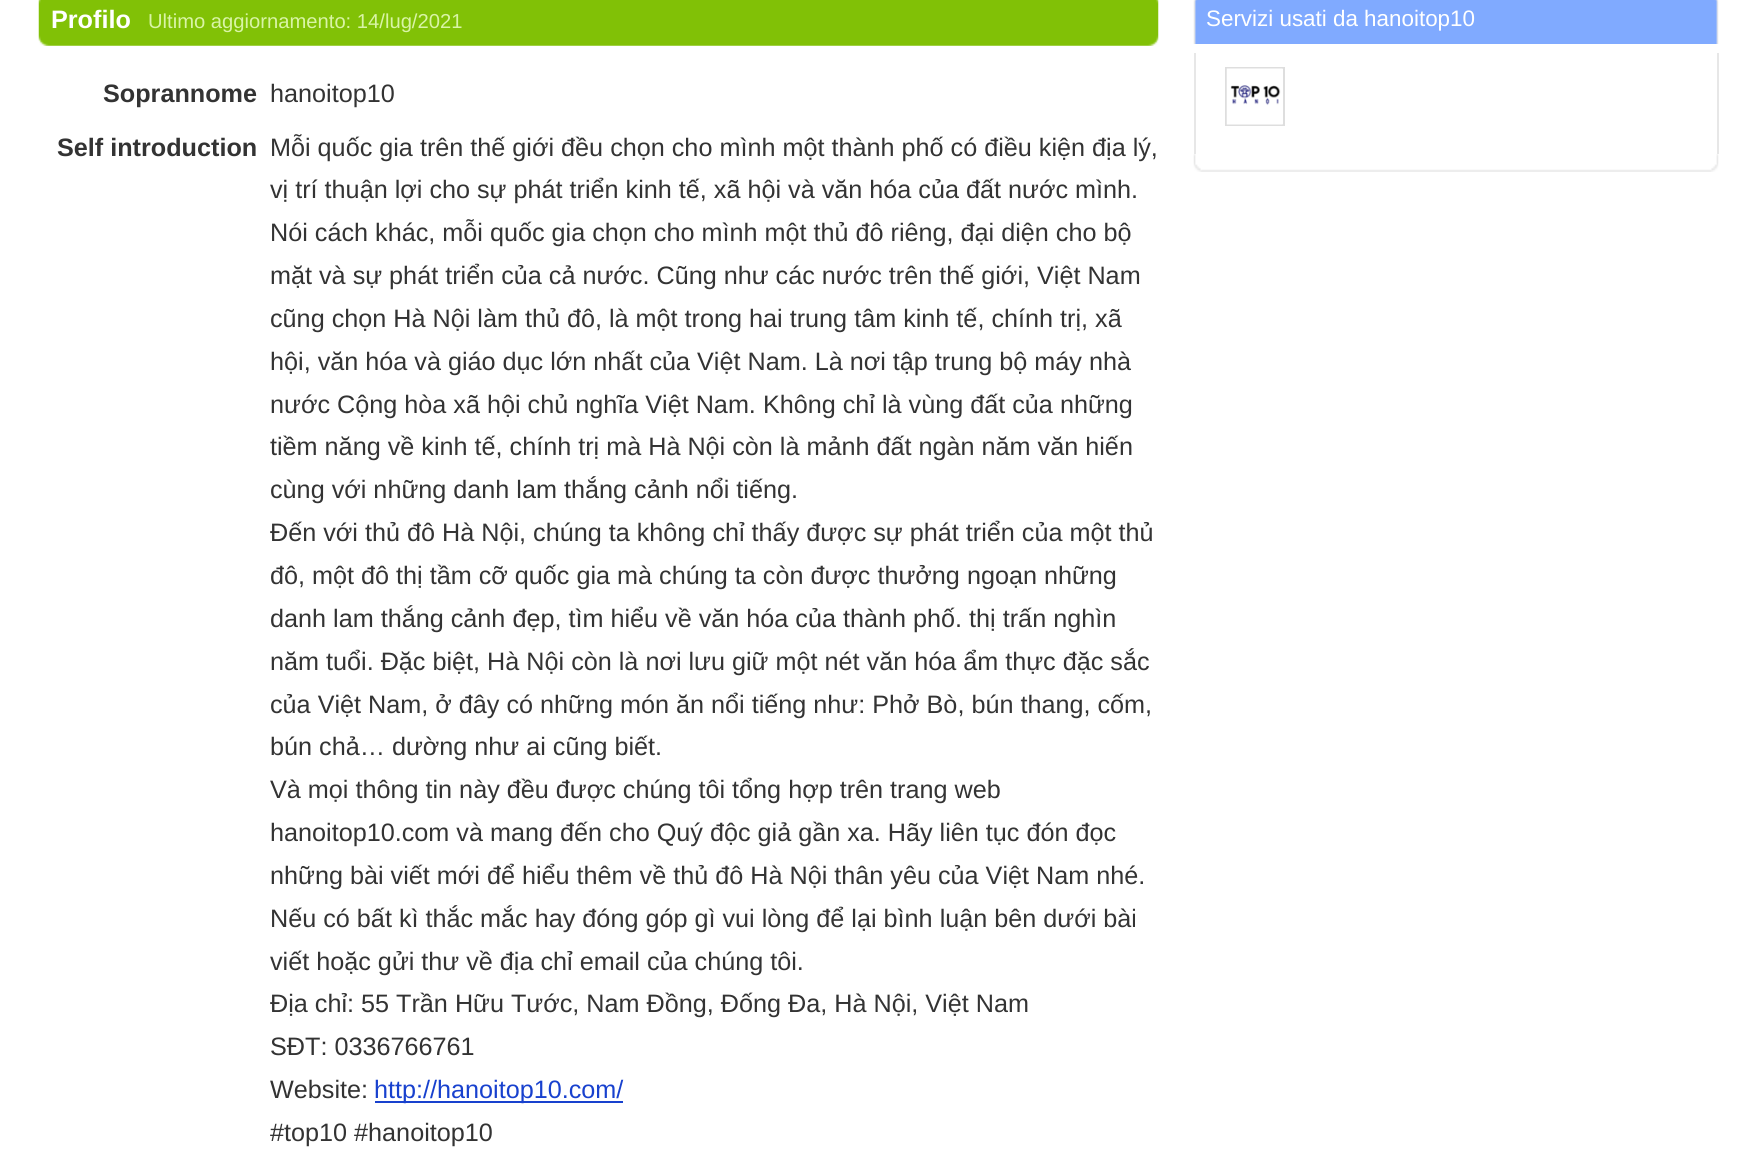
import math
import cairo


def use_color(cr, r, g, b):
  cr.set_source_rgb(r / 255, g / 255, b / 255)

def text(cr, x, y, s, family, size, color, bold=False, italic=False):
  cr.select_font_face(family, cairo.FONT_SLANT_ITALIC if italic else cairo.FONT_SLANT_NORMAL, cairo.FONT_WEIGHT_BOLD if bold else cairo.FONT_WEIGHT_NORMAL)
  cr.set_font_size(size)
  use_color(cr, *color)
  cr.move_to(x, y)
  cr.show_text(s)

def box(cr, x, y, w, h, *color):
  use_color(cr, *color)
  cr.rectangle(x, y, w, h)
  cr.fill()

def picture(cr, path, x, y, w, h):
  cr.save()
  cr.set_source_surface(cairo.ImageSurface.create_from_png(path), x, y)
  cr.rectangle(x, y, w, h)
  cr.fill()
  cr.restore()

def draw(cr):
  use_color(cr, 255, 255, 255)
  cr.paint()
  picture(cr, "img_01.png", 38, 0, 1121, 46)
  box(cr, 375, 1101, 248, 2, 24, 65, 206)
  picture(cr, "img_02.png", 1193, 154, 526, 18)
  picture(cr, "img_03.png", 1193, 0, 526, 44)
  box(cr, 1717, 53, 2, 101, 231, 231, 231)
  box(cr, 1194, 53, 2, 101, 231, 231, 231)
  cr.rectangle(1226, 68, 58, 57)
  use_color(cr, 222, 222, 222)
  cr.stroke()
  picture(cr, "img_04.png", 1226, 68, 57, 57)
  text(cr, 51, 28, "Profilo", "Liberation Sans", 25.2, (255, 255, 255), bold=True)
  text(cr, 148, 28, "Ultimo aggiornamento: 14/lug/2021", "Liberation Sans", 20.2, (217, 244, 166))
  text(cr, 103, 102, "Soprannome", "Liberation Sans", 25.2, (51, 51, 51), bold=True)
  text(cr, 270, 102, "hanoitop10", "Liberation Sans", 25.2, (51, 51, 51))
  text(cr, 57, 156, "Self introduction", "Liberation Sans", 25.2, (51, 51, 51), bold=True)
  text(cr, 270, 156, "Mỗi quốc gia trên thế giới đều chọn cho mình một thành phố có điều kiện địa lý,", "Liberation Sans", 25.2, (51, 51, 51))
  text(cr, 270, 198, "vị trí thuận lợi cho sự phát triển kinh tế, xã hội và văn hóa của đất nước mình.", "Liberation Sans", 25.2, (51, 51, 51))
  text(cr, 270, 241, "Nói cách khác, mỗi quốc gia chọn cho mình một thủ đô riêng, đại diện cho bộ", "Liberation Sans", 25.2, (51, 51, 51))
  text(cr, 270, 284, "mặt và sự phát triển của cả nước. Cũng như các nước trên thế giới, Việt Nam", "Liberation Sans", 25.2, (51, 51, 51))
  text(cr, 270, 327, "cũng chọn Hà Nội làm thủ đô, là một trong hai trung tâm kinh tế, chính trị, xã", "Liberation Sans", 25.2, (51, 51, 51))
  text(cr, 270, 370, "hội, văn hóa và giáo dục lớn nhất của Việt Nam. Là nơi tập trung bộ máy nhà", "Liberation Sans", 25.2, (51, 51, 51))
  text(cr, 270, 413, "nước Cộng hòa xã hội chủ nghĩa Việt Nam. Không chỉ là vùng đất của những", "Liberation Sans", 25.2, (51, 51, 51))
  text(cr, 270, 455, "tiềm năng về kinh tế, chính trị mà Hà Nội còn là mảnh đất ngàn năm văn hiến", "Liberation Sans", 25.2, (51, 51, 51))
  text(cr, 270, 498, "cùng với những danh lam thắng cảnh nổi tiếng.", "Liberation Sans", 25.2, (51, 51, 51))
  text(cr, 270, 541, "Đến với thủ đô Hà Nội, chúng ta không chỉ thấy được sự phát triển của một thủ", "Liberation Sans", 25.2, (51, 51, 51))
  text(cr, 270, 584, "đô, một đô thị tầm cỡ quốc gia mà chúng ta còn được thưởng ngoạn những", "Liberation Sans", 25.2, (51, 51, 51))
  text(cr, 270, 627, "danh lam thắng cảnh đẹp, tìm hiểu về văn hóa của thành phố. thị trấn nghìn", "Liberation Sans", 25.2, (51, 51, 51))
  text(cr, 270, 670, "năm tuổi. Đặc biệt, Hà Nội còn là nơi lưu giữ một nét văn hóa ẩm thực đặc sắc", "Liberation Sans", 25.2, (51, 51, 51))
  text(cr, 270, 713, "của Việt Nam, ở đây có những món ăn nổi tiếng như: Phở Bò, bún thang, cốm,", "Liberation Sans", 25.2, (51, 51, 51))
  text(cr, 270, 755, "bún chả… dường như ai cũng biết.", "Liberation Sans", 25.2, (51, 51, 51))
  text(cr, 270, 798, "Và mọi thông tin này đều được chúng tôi tổng hợp trên trang web", "Liberation Sans", 25.2, (51, 51, 51))
  text(cr, 270, 841, "hanoitop10.com và mang đến cho Quý độc giả gần xa. Hãy liên tục đón đọc", "Liberation Sans", 25.2, (51, 51, 51))
  text(cr, 270, 884, "những bài viết mới để hiểu thêm về thủ đô Hà Nội thân yêu của Việt Nam nhé.", "Liberation Sans", 25.2, (51, 51, 51))
  text(cr, 270, 927, "Nếu có bất kì thắc mắc hay đóng góp gì vui lòng để lại bình luận bên dưới bài", "Liberation Sans", 25.2, (51, 51, 51))
  text(cr, 270, 970, "viết hoặc gửi thư về địa chỉ email của chúng tôi.", "Liberation Sans", 25.2, (51, 51, 51))
  text(cr, 270, 1012, "Địa chỉ: 55 Trần Hữu Tước, Nam Đồng, Đống Đa, Hà Nội, Việt Nam", "Liberation Sans", 25.2, (51, 51, 51))
  text(cr, 270, 1055, "SĐT: 0336766761", "Liberation Sans", 25.2, (51, 51, 51))
  text(cr, 270, 1098, "Website:", "Liberation Sans", 25.2, (51, 51, 51))
  text(cr, 374, 1098, "http://hanoitop10.com/", "Liberation Sans", 25.2, (24, 65, 206))
  text(cr, 270, 1141, "#top10 #hanoitop10", "Liberation Sans", 25.2, (51, 51, 51))
  text(cr, 1206, 26, "Servizi usati da hanoitop10", "Liberation Sans", 22.4, (255, 255, 255))


surface = cairo.ImageSurface(cairo.FORMAT_RGB24, 1756, 1153)
cr = cairo.Context(surface)
options = cairo.FontOptions()
options.set_hint_metrics(cairo.HINT_METRICS_OFF)
options.set_hint_style(cairo.HINT_STYLE_NONE)
cr.set_font_options(options)
cr.set_miter_limit(4)
draw(cr)
surface.write_to_png("out.png")
